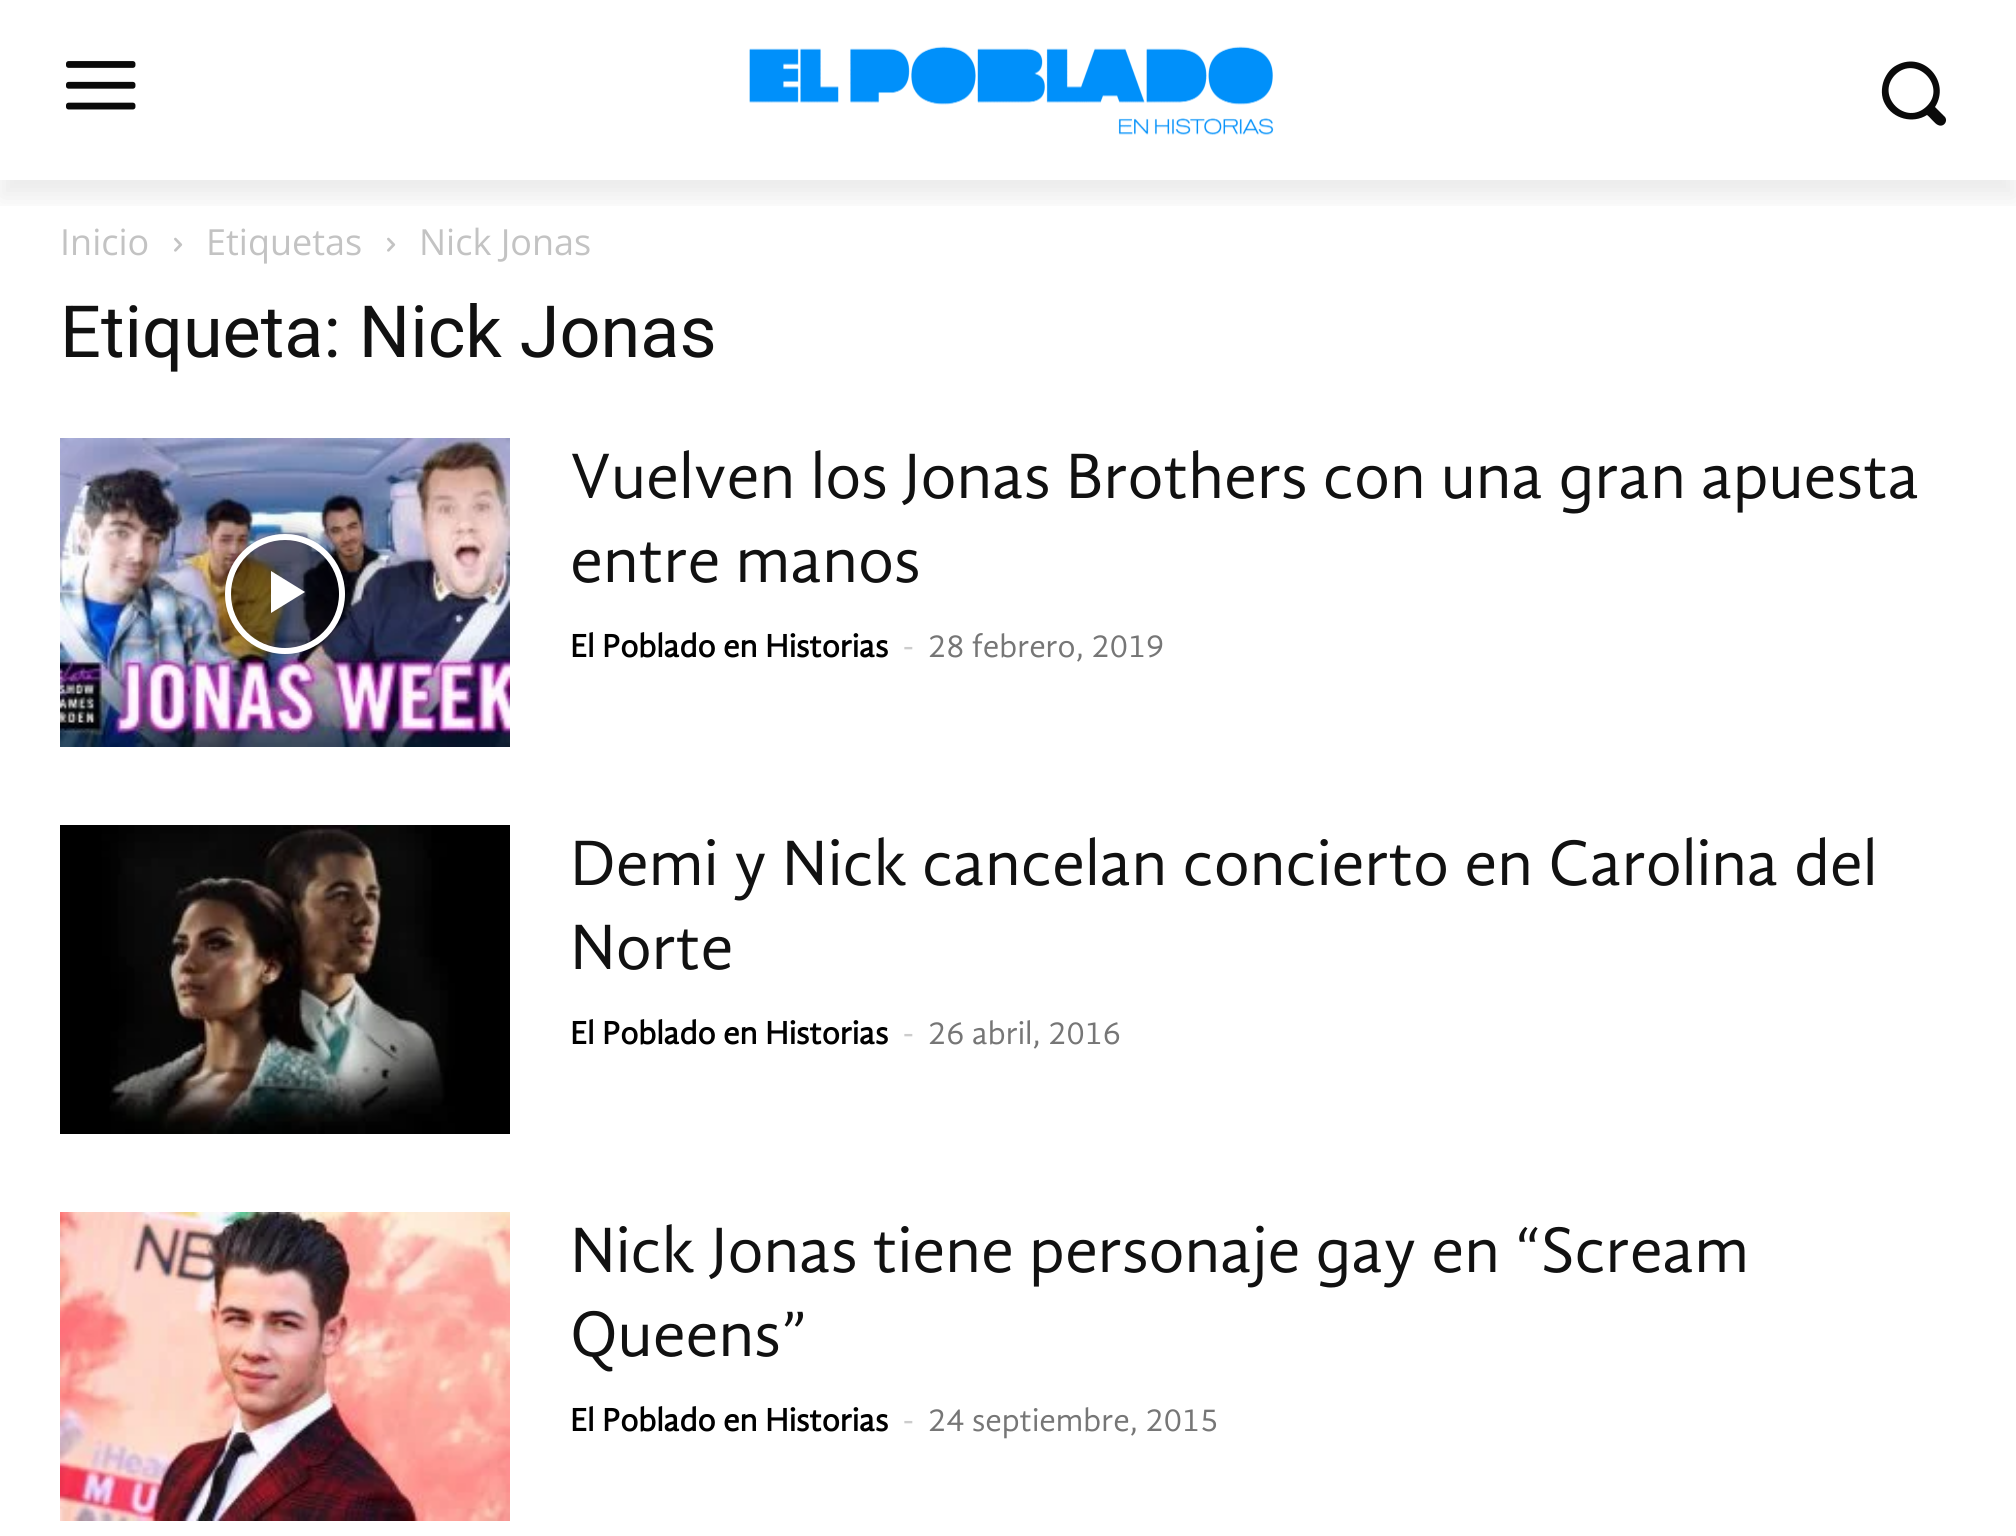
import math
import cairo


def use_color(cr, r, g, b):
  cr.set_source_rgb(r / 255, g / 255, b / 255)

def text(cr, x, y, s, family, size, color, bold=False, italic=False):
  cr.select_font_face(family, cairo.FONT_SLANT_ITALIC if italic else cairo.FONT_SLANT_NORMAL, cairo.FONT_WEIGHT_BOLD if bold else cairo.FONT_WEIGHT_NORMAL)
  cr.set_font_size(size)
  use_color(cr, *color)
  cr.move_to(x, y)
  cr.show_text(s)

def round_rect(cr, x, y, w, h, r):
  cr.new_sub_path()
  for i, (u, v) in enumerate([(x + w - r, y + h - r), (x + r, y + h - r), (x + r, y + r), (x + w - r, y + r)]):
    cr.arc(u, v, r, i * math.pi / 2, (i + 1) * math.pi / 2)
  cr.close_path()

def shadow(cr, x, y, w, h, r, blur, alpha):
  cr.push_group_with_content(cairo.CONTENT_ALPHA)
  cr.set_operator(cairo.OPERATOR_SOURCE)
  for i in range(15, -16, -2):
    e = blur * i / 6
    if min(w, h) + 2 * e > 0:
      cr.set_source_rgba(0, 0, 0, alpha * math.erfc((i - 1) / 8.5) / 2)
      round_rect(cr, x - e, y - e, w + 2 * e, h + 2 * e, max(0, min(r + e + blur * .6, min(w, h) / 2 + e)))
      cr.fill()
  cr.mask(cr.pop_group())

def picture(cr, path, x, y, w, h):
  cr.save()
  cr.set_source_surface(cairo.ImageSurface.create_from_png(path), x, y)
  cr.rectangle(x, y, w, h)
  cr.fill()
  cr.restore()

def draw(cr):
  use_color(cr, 255, 255, 255)
  cr.paint()
  picture(cr, "img_01.png", 66, 61, 70, 49)
  picture(cr, "img_02.png", 749, 46, 525, 89)
  use_color(cr, 10, 10, 10)
  cr.new_path()
  cr.move_to(1944, 116)
  cr.line_to(1935, 107)
  cr.curve_to(1951, 82, 1924, 51, 1897, 65)
  cr.curve_to(1891, 68, 1887, 73, 1884, 80)
  cr.curve_to(1881, 88, 1881, 97, 1885, 104)
  cr.curve_to(1893, 119, 1913, 124, 1927, 115)
  cr.curve_to(1930, 117, 1935, 124, 1938, 125)
  cr.curve_to(1944, 128, 1949, 120, 1944, 116)
  cr.close_path()
  cr.move_to(1927, 106)
  cr.curve_to(1906, 127, 1875, 96, 1895, 75)
  cr.curve_to(1916, 54, 1947, 86, 1927, 106)
  cr.close_path()
  cr.fill()
  cr.save()
  cr.rectangle(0, 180, 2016, 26)
  cr.clip()
  use_color(cr, 0, 0, 0)
  shadow(cr, 0, 18, 2016, 180, 0, 12, 0.08)
  cr.restore()
  picture(cr, "img_03.png", 174, 237, 9, 15)
  picture(cr, "img_03.png", 387, 237, 9, 15)
  picture(cr, "img_04.png", 60, 438, 450, 309)
  cr.save()
  cr.set_fill_rule(cairo.FILL_RULE_EVEN_ODD)
  cr.new_path()
  cr.move_to(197, 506)
  cr.line_to(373, 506)
  cr.line_to(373, 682)
  cr.line_to(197, 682)
  cr.close_path()
  cr.move_to(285, 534)
  cr.curve_to(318, 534, 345, 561, 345, 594)
  cr.curve_to(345, 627, 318, 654, 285, 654)
  cr.curve_to(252, 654, 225, 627, 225, 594)
  cr.curve_to(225, 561, 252, 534, 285, 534)
  cr.close_path()
  cr.clip()
  use_color(cr, 0, 0, 0)
  shadow(cr, 225, 534, 120, 120, 60, 9, 0.4)
  cr.restore()
  cr.set_source_rgba(0, 0, 0, 0.48)
  cr.arc(285, 594, 57, 0, 2 * math.pi)
  cr.fill_preserve()
  use_color(cr, 255, 255, 255)
  cr.set_line_width(6)
  cr.stroke()
  cr.new_path()
  cr.move_to(271, 571)
  cr.line_to(271, 613)
  cr.line_to(305, 592)
  cr.close_path()
  cr.fill()
  picture(cr, "img_05.png", 60, 825, 450, 309)
  picture(cr, "img_06.png", 60, 1212, 450, 309)
  text(cr, 60, 255, "Inicio", "Open Sans", 36, (195, 195, 195))
  text(cr, 206, 255, "Etiquetas", "Open Sans", 36, (195, 195, 195))
  text(cr, 419, 255, "Nick Jonas", "Open Sans", 36, (195, 195, 195))
  text(cr, 60, 357, "Etiqueta: Nick Jonas", "Roboto", 72, (17, 17, 17))
  text(cr, 570, 498, "Vuelven los Jonas Brothers con una gran apuesta", "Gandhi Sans", 66, (17, 17, 17))
  text(cr, 570, 582, "entre manos", "Gandhi Sans", 66, (17, 17, 17))
  text(cr, 570, 657, "El Poblado en Historias", "Gandhi Sans", 33, (0, 0, 0), bold=True)
  text(cr, 903, 657, "-", "Open Sans", 33, (204, 204, 204))
  text(cr, 928, 657, "28 febrero, 2019", "Gandhi Sans", 33, (118, 118, 118))
  text(cr, 570, 885, "Demi y Nick cancelan concierto en Carolina del", "Gandhi Sans", 66, (17, 17, 17))
  text(cr, 570, 969, "Norte", "Gandhi Sans", 66, (17, 17, 17))
  text(cr, 570, 1044, "El Poblado en Historias", "Gandhi Sans", 33, (0, 0, 0), bold=True)
  text(cr, 903, 1044, "-", "Open Sans", 33, (204, 204, 204))
  text(cr, 928, 1044, "26 abril, 2016", "Gandhi Sans", 33, (118, 118, 118))
  text(cr, 570, 1272, "Nick Jonas tiene personaje gay en “Scream", "Gandhi Sans", 66, (17, 17, 17))
  text(cr, 570, 1356, "Queens”", "Gandhi Sans", 66, (17, 17, 17))
  text(cr, 570, 1431, "El Poblado en Historias", "Gandhi Sans", 33, (0, 0, 0), bold=True)
  text(cr, 903, 1431, "-", "Open Sans", 33, (204, 204, 204))
  text(cr, 928, 1431, "24 septiembre, 2015", "Gandhi Sans", 33, (118, 118, 118))


surface = cairo.ImageSurface(cairo.FORMAT_RGB24, 2016, 1536)
cr = cairo.Context(surface)
options = cairo.FontOptions()
options.set_hint_metrics(cairo.HINT_METRICS_OFF)
options.set_hint_style(cairo.HINT_STYLE_NONE)
cr.set_font_options(options)
cr.set_miter_limit(4)
draw(cr)
surface.write_to_png("out.png")
